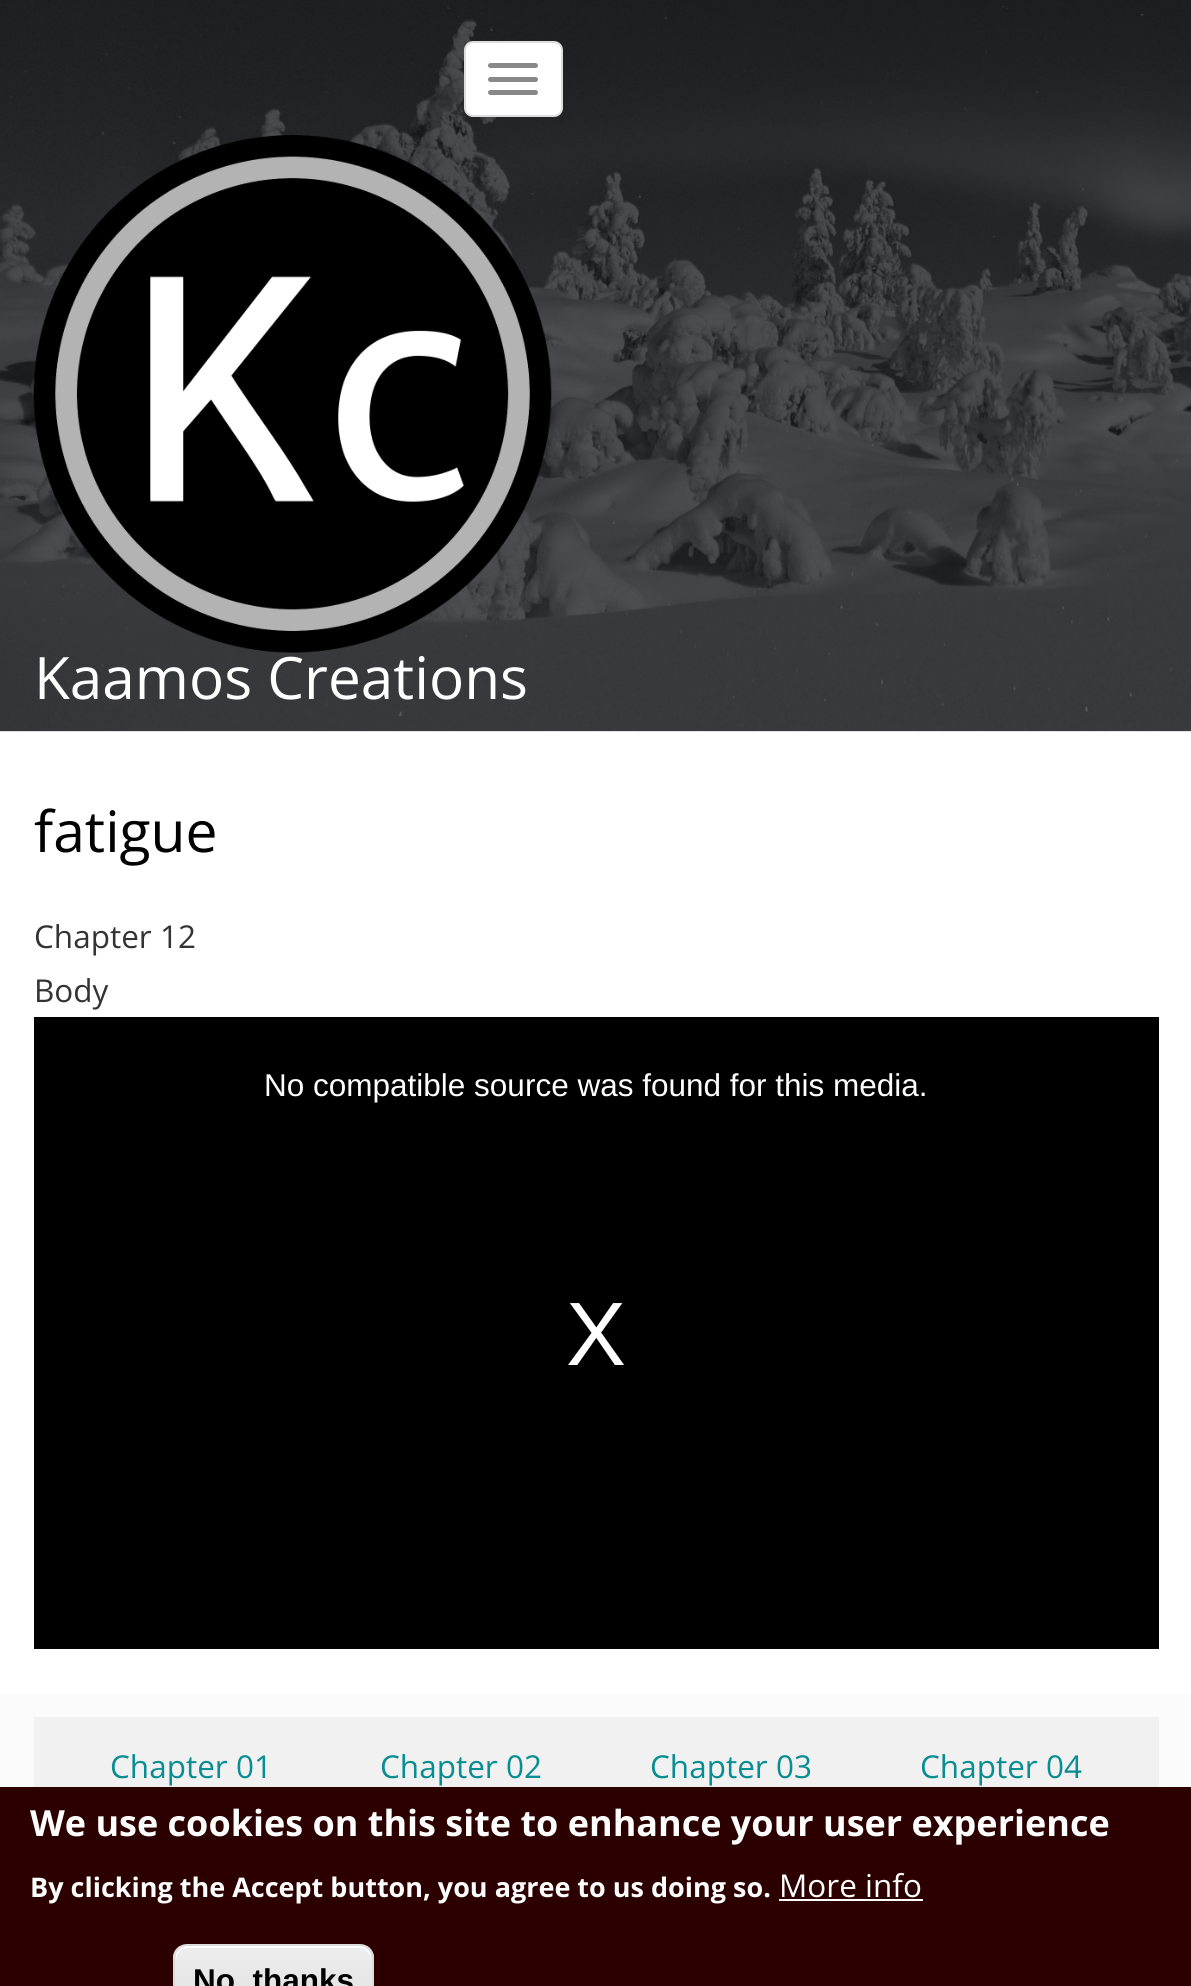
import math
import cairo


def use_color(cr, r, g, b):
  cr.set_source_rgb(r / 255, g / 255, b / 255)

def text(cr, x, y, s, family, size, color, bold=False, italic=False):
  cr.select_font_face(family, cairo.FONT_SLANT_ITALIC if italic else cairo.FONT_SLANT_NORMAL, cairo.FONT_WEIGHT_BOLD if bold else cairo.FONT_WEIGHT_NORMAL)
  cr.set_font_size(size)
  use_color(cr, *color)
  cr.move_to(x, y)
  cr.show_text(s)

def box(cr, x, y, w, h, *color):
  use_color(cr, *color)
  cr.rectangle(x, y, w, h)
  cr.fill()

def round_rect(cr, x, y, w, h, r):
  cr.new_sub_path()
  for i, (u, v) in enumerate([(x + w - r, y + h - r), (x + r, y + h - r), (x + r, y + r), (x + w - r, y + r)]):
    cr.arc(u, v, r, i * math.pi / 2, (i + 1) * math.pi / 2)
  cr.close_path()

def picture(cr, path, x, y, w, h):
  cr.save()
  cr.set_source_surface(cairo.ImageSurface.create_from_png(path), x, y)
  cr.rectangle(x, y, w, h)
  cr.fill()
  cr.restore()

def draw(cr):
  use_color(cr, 255, 255, 255)
  cr.paint()
  picture(cr, "img_01.png", 0, 0, 1191, 732)
  use_color(cr, 255, 255, 255)
  round_rect(cr, 465, 42, 97, 74, 8)
  cr.fill_preserve()
  use_color(cr, 221, 221, 221)
  cr.stroke()
  use_color(cr, 136, 136, 136)
  round_rect(cr, 488, 63, 50, 5, 2.5)
  cr.fill()
  round_rect(cr, 488, 77, 50, 5, 2.5)
  cr.fill()
  round_rect(cr, 488, 90, 50, 5, 2.5)
  cr.fill()
  picture(cr, "img_02.png", 33, 135, 519, 518)
  box(cr, 34, 1017, 1125, 632, 0, 0, 0)
  box(cr, 0, 1694, 1191, 93, 251, 251, 251)
  box(cr, 34, 1717, 1125, 70, 241, 241, 241)
  box(cr, 0, 1787, 1191, 199, 45, 0, 0)
  box(cr, 779, 1899, 144, 2, 255, 255, 255)
  cr.save()
  round_rect(cr, 173, 1944, 201, 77, 14)
  cr.clip()
  gradient = cairo.LinearGradient(273, 1946, 273, 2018)
  gradient.add_color_stop_rgba(0.05, 0.929, 0.929, 0.929, 1)
  gradient.add_color_stop_rgba(1, 0.875, 0.875, 0.875, 1)
  cr.set_source(gradient)
  cr.rectangle(173, 1946, 201, 40)
  cr.fill()
  cr.restore()
  cr.new_path()
  cr.move_to(187, 1948)
  cr.line_to(360, 1948)
  cr.curve_to(366, 1948, 371, 1954, 371, 1960)
  cr.line_to(371, 1957)
  cr.curve_to(371, 1951, 366, 1946, 360, 1946)
  cr.line_to(187, 1946)
  cr.curve_to(181, 1946, 176, 1951, 176, 1957)
  cr.line_to(176, 1960)
  cr.curve_to(176, 1954, 181, 1948, 187, 1948)
  cr.close_path()
  cr.fill()
  round_rect(cr, 174, 1945, 199, 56, 13)
  use_color(cr, 220, 220, 220)
  cr.stroke()
  text(cr, 34, 699, "Kaamos Creations", "Open Sans", 58.5, (255, 255, 255))
  text(cr, 34, 852, "fatigue", "Open Sans", 57, (0, 0, 0))
  text(cr, 34, 948, "Chapter 12", "Open Sans", 31.5, (51, 51, 51))
  text(cr, 34, 1002, "Body", "Open Sans", 31.5, (51, 51, 51))
  text(cr, 264, 1096, "No compatible source was found for this media.", "Liberation Sans", 31.5, (255, 255, 255))
  text(cr, 566, 1365, "X", "Liberation Sans", 90, (255, 255, 255))
  text(cr, 110, 1778, "Chapter 01", "Open Sans", 31.5, (7, 141, 146))
  text(cr, 380, 1778, "Chapter 02", "Open Sans", 31.5, (7, 141, 146))
  text(cr, 650, 1778, "Chapter 03", "Open Sans", 31.5, (7, 141, 146))
  text(cr, 920, 1778, "Chapter 04", "Open Sans", 31.5, (7, 141, 146))
  text(cr, 30, 1836, "We use cookies on this site to enhance your user experience", "Open Sans", 36, (255, 255, 255), bold=True)
  text(cr, 30, 1897, "By clicking the Accept button, you agree to us doing so.", "Open Sans", 27, (255, 255, 255), bold=True)
  text(cr, 779, 1897, "More info", "Open Sans", 31.5, (255, 255, 255))
  text(cr, 193, 1991, "No, thanks", "Liberation Sans", 31.5, (0, 0, 0), bold=True)


surface = cairo.ImageSurface(cairo.FORMAT_RGB24, 1191, 1986)
cr = cairo.Context(surface)
options = cairo.FontOptions()
options.set_hint_metrics(cairo.HINT_METRICS_OFF)
options.set_hint_style(cairo.HINT_STYLE_NONE)
cr.set_font_options(options)
cr.set_miter_limit(4)
draw(cr)
surface.write_to_png("out.png")
